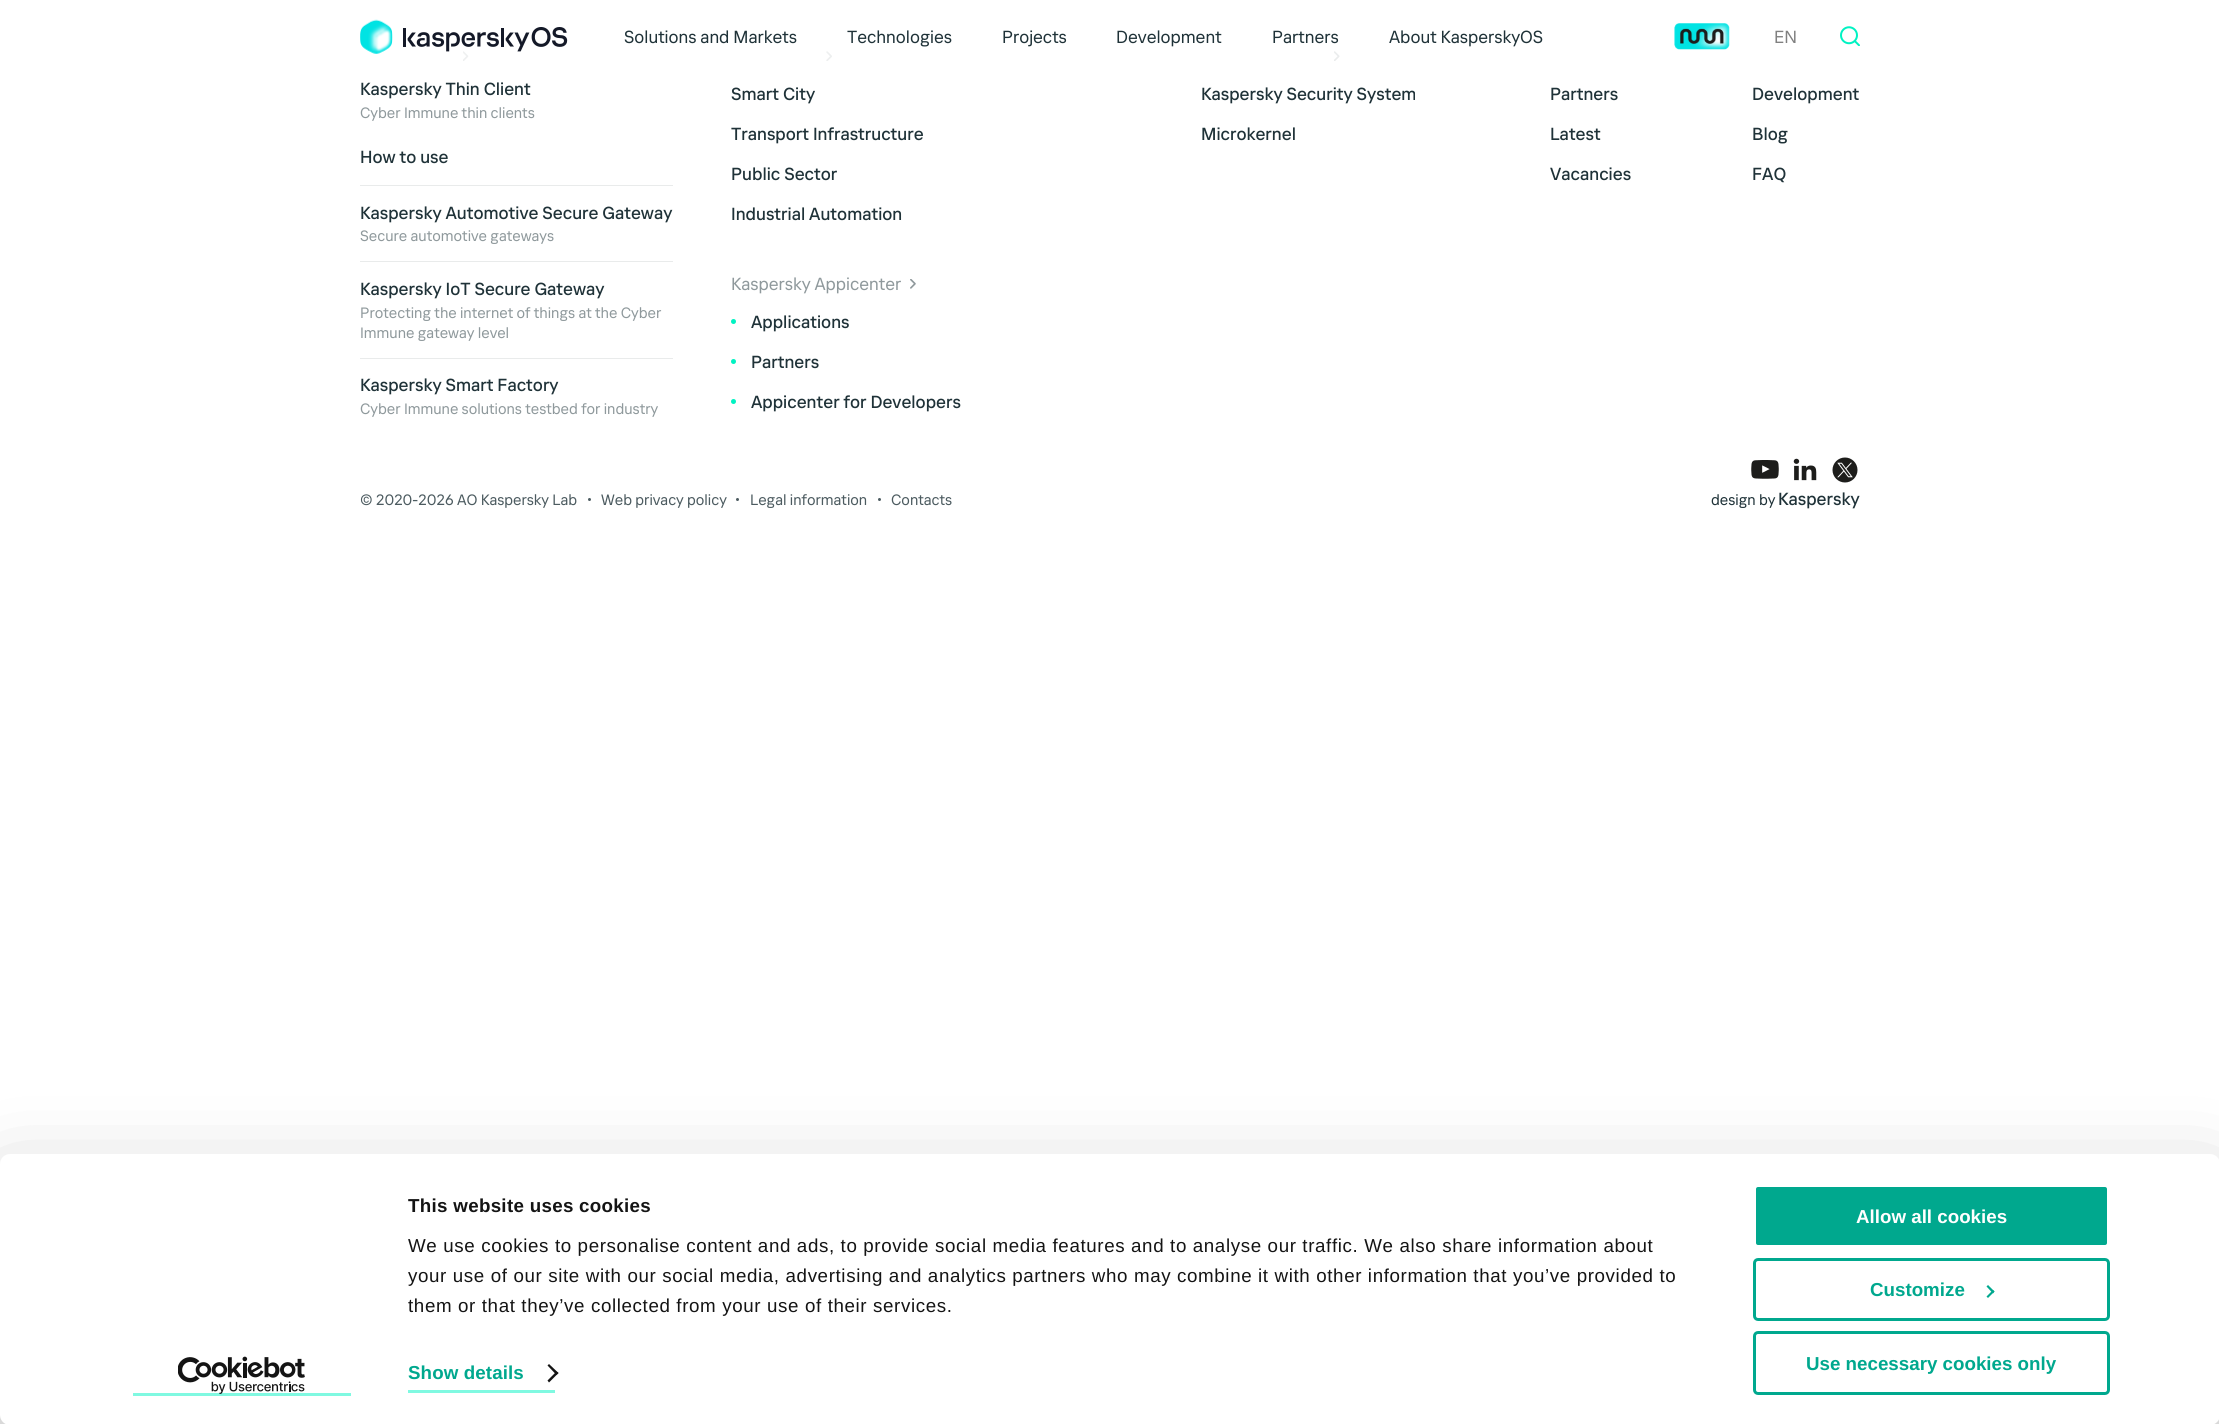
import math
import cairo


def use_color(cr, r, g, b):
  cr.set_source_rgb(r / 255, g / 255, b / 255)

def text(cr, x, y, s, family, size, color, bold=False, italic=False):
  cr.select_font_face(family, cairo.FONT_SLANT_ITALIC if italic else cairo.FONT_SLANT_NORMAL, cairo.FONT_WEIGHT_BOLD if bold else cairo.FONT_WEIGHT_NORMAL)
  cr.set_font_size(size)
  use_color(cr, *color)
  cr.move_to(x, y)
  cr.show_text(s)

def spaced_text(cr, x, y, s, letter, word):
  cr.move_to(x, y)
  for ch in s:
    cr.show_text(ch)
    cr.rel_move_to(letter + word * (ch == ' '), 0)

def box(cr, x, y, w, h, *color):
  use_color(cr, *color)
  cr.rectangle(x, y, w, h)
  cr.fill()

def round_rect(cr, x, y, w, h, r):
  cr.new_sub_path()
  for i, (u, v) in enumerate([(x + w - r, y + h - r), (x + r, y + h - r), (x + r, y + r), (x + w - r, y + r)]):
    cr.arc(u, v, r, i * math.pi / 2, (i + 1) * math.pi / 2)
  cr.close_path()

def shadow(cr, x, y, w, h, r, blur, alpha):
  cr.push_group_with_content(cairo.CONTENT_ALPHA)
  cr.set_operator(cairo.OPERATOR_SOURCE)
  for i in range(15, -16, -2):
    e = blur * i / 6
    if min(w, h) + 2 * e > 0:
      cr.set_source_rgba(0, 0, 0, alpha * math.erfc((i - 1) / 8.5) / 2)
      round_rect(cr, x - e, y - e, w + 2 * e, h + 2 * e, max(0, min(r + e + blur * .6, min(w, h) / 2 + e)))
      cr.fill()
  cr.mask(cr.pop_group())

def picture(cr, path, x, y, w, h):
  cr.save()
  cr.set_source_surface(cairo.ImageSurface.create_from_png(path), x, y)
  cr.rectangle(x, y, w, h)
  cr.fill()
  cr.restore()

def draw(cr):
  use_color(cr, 255, 255, 255)
  cr.paint()
  picture(cr, "img_01.png", 360, 19, 33, 35)
  picture(cr, "img_05.png", 463, 51, 6, 10)
  picture(cr, "img_06.png", 826, 51, 6, 10)
  picture(cr, "img_08.png", 1334, 51, 6, 10)
  gradient = cairo.RadialGradient(0, 0, 0, 0, 0, 1)
  gradient.set_matrix(cairo.Matrix(1 / 2220, 0, 0, 1 / 80, -1 * 0 / 2220, -1 * 0 / 80))
  gradient.add_color_stop_rgba(0, 1, 1, 1, 1)
  gradient.add_color_stop_rgba(1, 1, 1, 1, 0.8)
  cr.set_source(gradient)
  cr.rectangle(463, 51, 877, 10)
  cr.fill()
  picture(cr, "img_02.png", 403, 27, 165, 25)
  picture(cr, "img_03.png", 1674, 23, 56, 27)
  picture(cr, "img_04.png", 1840, 26, 20, 20)
  box(cr, 360, 185, 313, 1, 233, 235, 235)
  box(cr, 360, 261, 313, 1, 233, 235, 235)
  box(cr, 360, 358, 313, 1, 233, 235, 235)
  picture(cr, "img_07.png", 910, 279, 6, 10)
  use_color(cr, 0, 242, 194)
  cr.arc(733.5, 321.5, 2.5, 0, 2 * math.pi)
  cr.fill()
  cr.arc(733.5, 361.5, 2.5, 0, 2 * math.pi)
  cr.fill()
  cr.arc(733.5, 401.5, 2.5, 0, 2 * math.pi)
  cr.fill()
  picture(cr, "img_09.png", 1751, 460, 28, 19)
  picture(cr, "img_10.png", 1793, 458, 24, 23)
  picture(cr, "img_11.png", 1832, 457, 26, 26)
  use_color(cr, 76, 91, 96)
  cr.arc(589.5, 499.5, 1.5, 0, 2 * math.pi)
  cr.fill()
  cr.arc(737.5, 499.5, 1.5, 0, 2 * math.pi)
  cr.fill()
  cr.arc(879.5, 499.5, 1.5, 0, 2 * math.pi)
  cr.fill()
  use_color(cr, 0, 0, 0)
  shadow(cr, 0, 1191, 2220, 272, 10, 44, 0.3)
  use_color(cr, 255, 255, 255)
  round_rect(cr, 0, 1154, 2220, 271, 10)
  cr.fill()
  box(cr, 133, 1393, 218, 3, 128, 249, 225)
  picture(cr, "img_12.png", 178, 1356, 127, 38)
  box(cr, 408, 1390, 147, 3, 128, 249, 225)
  use_color(cr, 20, 20, 20)
  cr.new_path()
  cr.move_to(549, 1364)
  cr.line_to(558.5, 1373)
  cr.line_to(556.5, 1375)
  cr.line_to(547.5, 1365.5)
  cr.close_path()
  cr.fill()
  cr.new_path()
  cr.move_to(556.5, 1371.5)
  cr.line_to(558.5, 1373)
  cr.line_to(549, 1382.5)
  cr.line_to(547.5, 1380.5)
  cr.close_path()
  cr.fill()
  use_color(cr, 0, 168, 142)
  round_rect(cr, 1754.5, 1185.5, 354, 61, 3.5)
  cr.fill_preserve()
  use_color(cr, 255, 255, 255)
  cr.set_line_width(3)
  cr.stroke()
  round_rect(cr, 1754.5, 1259.5, 354, 60, 3.5)
  use_color(cr, 0, 168, 142)
  cr.stroke()
  cr.new_path()
  cr.move_to(1988, 1285)
  cr.line_to(1994.5, 1291.5)
  cr.line_to(1993, 1293.5)
  cr.line_to(1986.5, 1286.5)
  cr.close_path()
  cr.fill()
  cr.new_path()
  cr.move_to(1993, 1290)
  cr.line_to(1994.5, 1291.5)
  cr.line_to(1988, 1298)
  cr.line_to(1986.5, 1296.5)
  cr.close_path()
  cr.fill()
  round_rect(cr, 1754.5, 1332.5, 354, 61, 3.5)
  cr.stroke()
  text(cr, 624, 43, "Solutions and Markets", "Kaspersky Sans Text", 17.5, (31, 50, 56))
  text(cr, 847, 43, "Technologies", "Kaspersky Sans Text", 17.5, (31, 50, 56))
  text(cr, 1002, 43, "Projects", "Kaspersky Sans Text", 17.5, (31, 50, 56))
  text(cr, 1116, 43, "Development", "Kaspersky Sans Text", 17.5, (31, 50, 56))
  text(cr, 1272, 43, "Partners", "Kaspersky Sans Text", 17.5, (31, 50, 56))
  text(cr, 1389, 43, "About KasperskyOS", "Kaspersky Sans Text", 17.5, (31, 50, 56))
  text(cr, 1774, 43, "EN", "Kaspersky Sans Text", 17.5, (128, 128, 128))
  text(cr, 360, 95, "Kaspersky Thin Client", "Kaspersky Sans Text Medium", 17.5, (31, 50, 56))
  text(cr, 360, 118, "Cyber Immune thin clients", "Kaspersky Sans Text", 15, (143, 153, 156))
  text(cr, 360, 163, "How to use", "Kaspersky Sans Text Medium", 17.5, (31, 50, 56))
  text(cr, 360, 219, "Kaspersky Automotive Secure Gateway", "Kaspersky Sans Text Medium", 17.5, (31, 50, 56))
  text(cr, 360, 241, "Secure automotive gateways", "Kaspersky Sans Text", 15, (143, 153, 156))
  text(cr, 360, 295, "Kaspersky IoT Secure Gateway", "Kaspersky Sans Text Medium", 17.5, (31, 50, 56))
  text(cr, 360, 318, "Protecting the internet of things at the Cyber", "Kaspersky Sans Text", 15, (143, 153, 156))
  text(cr, 360, 338, "Immune gateway level", "Kaspersky Sans Text", 15, (143, 153, 156))
  text(cr, 360, 391, "Kaspersky Smart Factory", "Kaspersky Sans Text Medium", 17.5, (31, 50, 56))
  text(cr, 360, 414, "Cyber Immune solutions testbed for industry", "Kaspersky Sans Text", 15, (143, 153, 156))
  text(cr, 731, 100, "Smart City", "Kaspersky Sans Text Medium", 17.5, (31, 50, 56))
  text(cr, 731, 140, "Transport Infrastructure", "Kaspersky Sans Text Medium", 17.5, (31, 50, 56))
  text(cr, 731, 180, "Public Sector", "Kaspersky Sans Text Medium", 17.5, (31, 50, 56))
  text(cr, 731, 220, "Industrial Automation", "Kaspersky Sans Text Medium", 17.5, (31, 50, 56))
  text(cr, 731, 290, "Kaspersky Appicenter", "Kaspersky Sans Text", 17.5, (143, 153, 156))
  text(cr, 751, 328, "Applications", "Kaspersky Sans Text Medium", 17.5, (31, 50, 56))
  text(cr, 751, 368, "Partners", "Kaspersky Sans Text Medium", 17.5, (31, 50, 56))
  text(cr, 751, 408, "Appicenter for Developers", "Kaspersky Sans Text Medium", 17.5, (31, 50, 56))
  text(cr, 1201, 100, "Kaspersky Security System", "Kaspersky Sans Text Medium", 17.5, (31, 50, 56))
  text(cr, 1201, 140, "Microkernel", "Kaspersky Sans Text Medium", 17.5, (31, 50, 56))
  text(cr, 1550, 100, "Partners", "Kaspersky Sans Text Medium", 17.5, (31, 50, 56))
  text(cr, 1752, 100, "Development", "Kaspersky Sans Text Medium", 17.5, (31, 50, 56))
  text(cr, 1550, 140, "Latest", "Kaspersky Sans Text Medium", 17.5, (31, 50, 56))
  text(cr, 1752, 140, "Blog", "Kaspersky Sans Text Medium", 17.5, (31, 50, 56))
  text(cr, 1550, 180, "Vacancies", "Kaspersky Sans Text Medium", 17.5, (31, 50, 56))
  text(cr, 1752, 180, "FAQ", "Kaspersky Sans Text Medium", 17.5, (31, 50, 56))
  text(cr, 360, 505, "© 2020-2026 AO Kaspersky Lab", "Kaspersky Sans Text", 15, (76, 91, 96))
  text(cr, 601, 505, "Web privacy policy", "Kaspersky Sans Text", 15, (76, 91, 96))
  text(cr, 750, 505, "Legal information", "Kaspersky Sans Text", 15, (76, 91, 96))
  text(cr, 891, 505, "Contacts", "Kaspersky Sans Text", 15, (76, 91, 96))
  text(cr, 1711, 505, "design by", "Kaspersky Sans Text", 15, (31, 50, 56))
  text(cr, 1778, 505, "Kaspersky", "Kaspersky Sans Text Medium", 17.5, (31, 50, 56))
  cr.select_font_face("Liberation Sans", cairo.FONT_SLANT_NORMAL, cairo.FONT_WEIGHT_BOLD)
  cr.set_font_size(18.75)
  use_color(cr, 20, 20, 20)
  spaced_text(cr, 408, 1212, "This website uses cookies", 0.3, 0)
  cr.select_font_face("Liberation Sans")
  spaced_text(cr, 408, 1252, "We use cookies to personalise content and ads, to provide social media features and to analyse our traffic. We also share information about", 0.62, 0)
  spaced_text(cr, 408, 1282, "your use of our site with our social media, advertising and analytics partners who may combine it with other information that you’ve provided to", 0.62, 0)
  spaced_text(cr, 408, 1312, "them or that they’ve collected from your use of their services.", 0.62, 0)
  cr.select_font_face("Liberation Sans", cairo.FONT_SLANT_NORMAL, cairo.FONT_WEIGHT_BOLD)
  use_color(cr, 0, 168, 142)
  spaced_text(cr, 408, 1379, "Show details", 0.1, 0)
  text(cr, 1856, 1223, "Allow all cookies", "Liberation Sans", 18.75, (255, 255, 255), bold=True)
  text(cr, 1870, 1296, "Customize", "Liberation Sans", 18.75, (0, 168, 142), bold=True)
  text(cr, 1806, 1370, "Use necessary cookies only", "Liberation Sans", 18.75, (0, 168, 142), bold=True)


surface = cairo.ImageSurface(cairo.FORMAT_RGB24, 2219, 1424)
cr = cairo.Context(surface)
options = cairo.FontOptions()
options.set_hint_metrics(cairo.HINT_METRICS_OFF)
options.set_hint_style(cairo.HINT_STYLE_NONE)
cr.set_font_options(options)
cr.set_miter_limit(4)
draw(cr)
surface.write_to_png("out.png")
